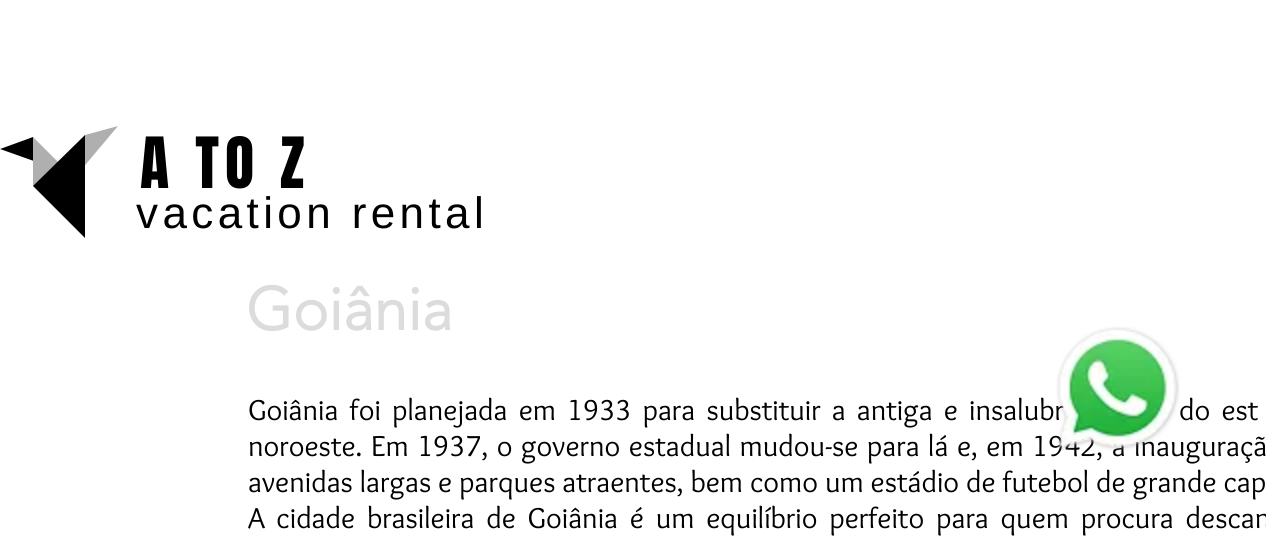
import math
import cairo


def use_color(cr, r, g, b):
  cr.set_source_rgb(r / 255, g / 255, b / 255)

def text(cr, x, y, s, family, size, color, bold=False, italic=False):
  cr.select_font_face(family, cairo.FONT_SLANT_ITALIC if italic else cairo.FONT_SLANT_NORMAL, cairo.FONT_WEIGHT_BOLD if bold else cairo.FONT_WEIGHT_NORMAL)
  cr.set_font_size(size)
  use_color(cr, *color)
  cr.move_to(x, y)
  cr.show_text(s)

def spaced_text(cr, x, y, s, letter, word):
  cr.move_to(x, y)
  for ch in s:
    cr.show_text(ch)
    cr.rel_move_to(letter + word * (ch == ' '), 0)

def picture(cr, path, x, y, w, h):
  cr.save()
  cr.set_source_surface(cairo.ImageSurface.create_from_png(path), x, y)
  cr.rectangle(x, y, w, h)
  cr.fill()
  cr.restore()

def draw(cr):
  use_color(cr, 255, 255, 255)
  cr.paint()
  use_color(cr, 0, 0, 0)
  cr.set_fill_rule(cairo.FILL_RULE_EVEN_ODD)
  cr.new_path()
  cr.move_to(45, 165)
  cr.line_to(0, 149)
  cr.line_to(33, 137)
  cr.close_path()
  cr.fill()
  use_color(cr, 175, 175, 175)
  cr.new_path()
  cr.move_to(33, 186)
  cr.line_to(33, 137)
  cr.line_to(68, 172)
  cr.close_path()
  cr.fill()
  cr.new_path()
  cr.move_to(76, 176)
  cr.line_to(85, 135)
  cr.line_to(118, 126)
  cr.close_path()
  cr.fill()
  use_color(cr, 0, 0, 0)
  cr.new_path()
  cr.move_to(85, 238)
  cr.line_to(33, 186)
  cr.line_to(85, 135)
  cr.close_path()
  cr.fill()
  cr.select_font_face("Anton")
  cr.set_font_size(60)
  spaced_text(cr, 140, 188, "A TO Z", 6, 0)
  cr.select_font_face("Liberation Sans")
  cr.set_font_size(44)
  spaced_text(cr, 136, 228, "vacation rental", 4.4, 0)
  text(cr, 246, 330, "Goiânia", "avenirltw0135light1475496", 60, (221, 220, 220), bold=True)
  cr.select_font_face("Overlock")
  cr.set_font_size(30)
  use_color(cr, 0, 0, 0)
  spaced_text(cr, 248, 420, "Goiânia foi planejada em 1933 para substituir a antiga e insalubr", 0, 4.25)
  spaced_text(cr, 1179, 420, "do est", 0, 4.25)
  spaced_text(cr, 248, 456, "noroeste. Em 1937, o governo estadual mudou-se para lá e, em 1942, a inauguraçã", 0, 1.6)
  text(cr, 248, 492, "avenidas largas e parques atraentes, bem como um estádio de futebol de grande cap", "Overlock", 30, (0, 0, 0))
  spaced_text(cr, 248, 528, "A cidade brasileira de Goiânia é um equilíbrio perfeito para quem procura descan", 0, 4.9)
  picture(cr, "img_01.png", 1056, 326, 124, 125)


surface = cairo.ImageSurface(cairo.FORMAT_RGB24, 1266, 538)
cr = cairo.Context(surface)
options = cairo.FontOptions()
options.set_hint_metrics(cairo.HINT_METRICS_OFF)
options.set_hint_style(cairo.HINT_STYLE_NONE)
cr.set_font_options(options)
cr.set_miter_limit(4)
draw(cr)
surface.write_to_png("out.png")
